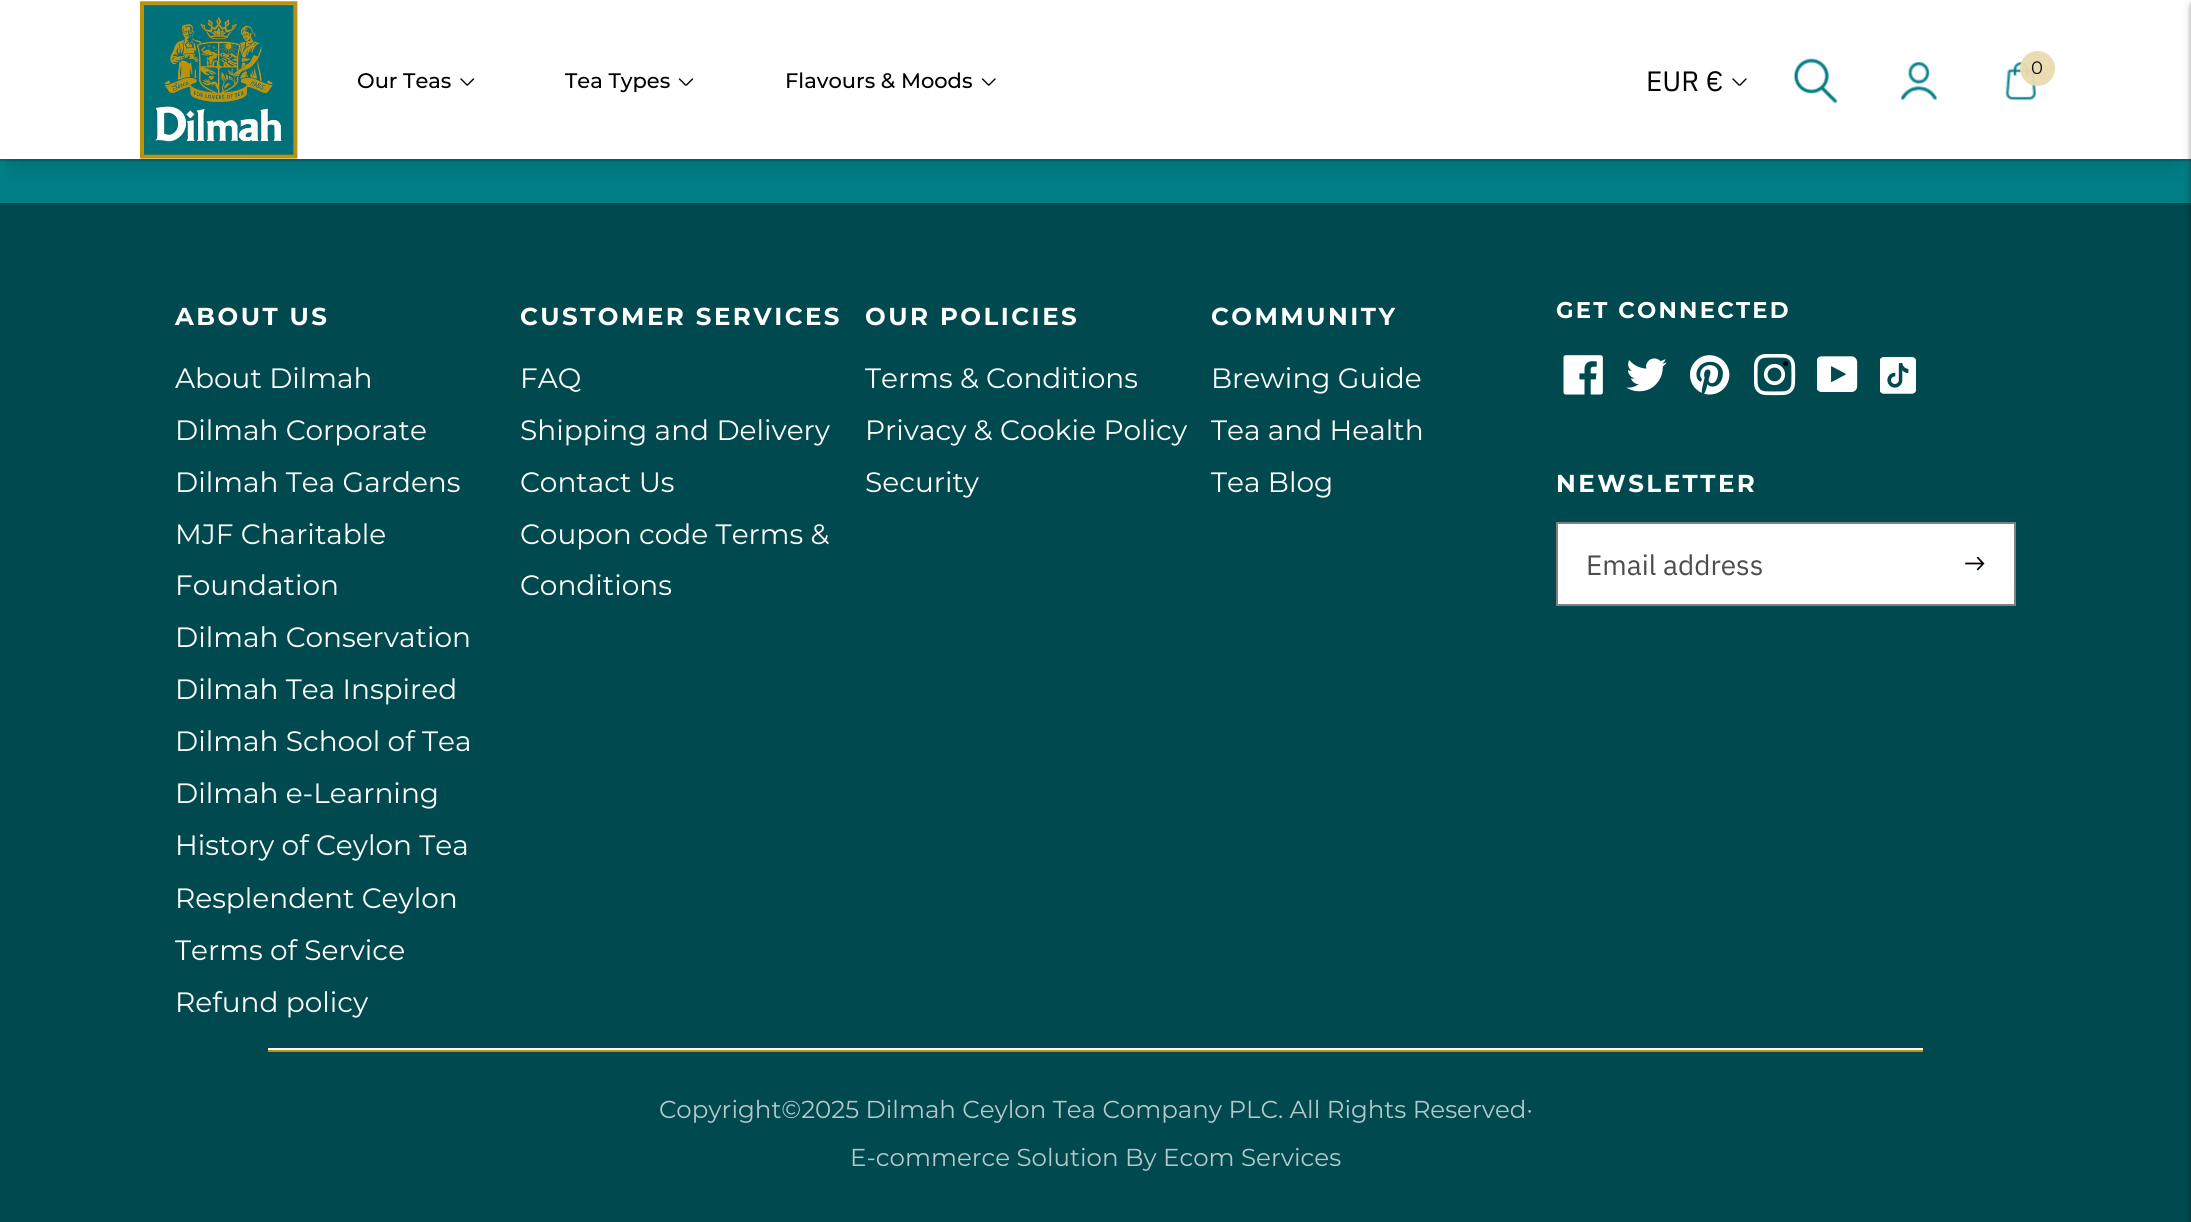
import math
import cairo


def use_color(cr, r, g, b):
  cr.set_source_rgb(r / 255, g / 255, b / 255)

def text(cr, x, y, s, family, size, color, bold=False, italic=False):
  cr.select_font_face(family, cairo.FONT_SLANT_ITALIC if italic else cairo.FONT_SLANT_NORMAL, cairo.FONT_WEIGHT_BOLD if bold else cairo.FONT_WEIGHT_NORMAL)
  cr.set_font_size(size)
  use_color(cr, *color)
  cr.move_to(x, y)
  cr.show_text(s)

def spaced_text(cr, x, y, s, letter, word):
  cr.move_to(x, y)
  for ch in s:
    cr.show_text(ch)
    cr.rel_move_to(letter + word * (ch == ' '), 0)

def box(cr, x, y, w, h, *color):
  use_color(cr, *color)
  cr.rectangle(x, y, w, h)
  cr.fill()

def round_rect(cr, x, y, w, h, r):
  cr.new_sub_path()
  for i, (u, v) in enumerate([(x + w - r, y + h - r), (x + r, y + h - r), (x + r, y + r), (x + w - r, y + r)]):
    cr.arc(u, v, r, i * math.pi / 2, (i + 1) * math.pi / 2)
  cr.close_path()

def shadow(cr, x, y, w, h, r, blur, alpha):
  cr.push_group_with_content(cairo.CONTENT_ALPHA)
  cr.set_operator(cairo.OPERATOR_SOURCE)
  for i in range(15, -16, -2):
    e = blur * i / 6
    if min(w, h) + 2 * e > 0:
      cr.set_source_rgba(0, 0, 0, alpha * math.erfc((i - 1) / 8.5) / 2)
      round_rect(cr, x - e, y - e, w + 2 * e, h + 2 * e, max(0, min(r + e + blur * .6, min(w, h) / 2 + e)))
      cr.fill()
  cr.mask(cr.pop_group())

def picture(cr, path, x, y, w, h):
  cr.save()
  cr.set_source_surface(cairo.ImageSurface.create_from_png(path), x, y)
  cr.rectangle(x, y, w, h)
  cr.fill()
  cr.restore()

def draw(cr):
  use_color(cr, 1, 125, 133)
  cr.paint()
  box(cr, 0, 0, 2191, 159, 255, 255, 255)
  box(cr, 0, 203, 2191, 1019, 0, 73, 79)
  use_color(cr, 0, 0, 0)
  shadow(cr, 2191, 7, 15, 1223, 0, 5, 0.1)
  shadow(cr, 2191, 4, 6, 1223, 0, 2, 0.15)
  cr.save()
  cr.rectangle(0, 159, 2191, 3)
  cr.clip()
  shadow(cr, 0, 2, 2191, 159, 0, 1, 0.2)
  cr.restore()
  cr.save()
  cr.rectangle(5, 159, 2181, 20)
  cr.clip()
  shadow(cr, 16, 35, 2159, 126, 0, 15, 0.17)
  cr.restore()
  picture(cr, "img_01.png", 140, 1, 158, 158)
  cr.new_path()
  cr.move_to(461, 79)
  cr.line_to(467, 85)
  cr.line_to(467.5, 85)
  cr.line_to(473.5, 79)
  use_color(cr, 0, 0, 0)
  cr.set_line_width(1.4)
  cr.set_line_cap(cairo.LINE_CAP_ROUND)
  cr.set_line_join(cairo.LINE_JOIN_ROUND)
  cr.stroke()
  cr.new_path()
  cr.move_to(679.5, 79)
  cr.line_to(685.5, 85)
  cr.line_to(686.5, 85)
  cr.line_to(692.5, 79)
  cr.stroke()
  cr.new_path()
  cr.move_to(982.5, 79)
  cr.line_to(988.5, 85)
  cr.line_to(989, 85)
  cr.line_to(995, 79)
  cr.stroke()
  cr.new_path()
  cr.move_to(1733, 79)
  cr.line_to(1739, 85)
  cr.line_to(1740, 85)
  cr.line_to(1746, 79)
  cr.stroke()
  picture(cr, "img_02.png", 1793, 58, 45, 46)
  picture(cr, "img_03.png", 1900, 62, 37, 39)
  picture(cr, "img_04.png", 2005, 62, 31, 39)
  cr.set_source_rgba(0.918, 0.859, 0.69, 0.95)
  cr.arc(2037.5, 68.5, 17.5, 0, 2 * math.pi)
  cr.fill()
  use_color(cr, 0, 0, 0)
  shadow(cr, 2191, 7, 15, 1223, 0, 5, 0.1)
  shadow(cr, 2191, 4, 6, 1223, 0, 2, 0.15)
  picture(cr, "img_05.png", 1563, 355, 40, 40)
  picture(cr, "img_06.png", 1626, 358, 41, 34)
  picture(cr, "img_07.png", 1690, 355, 40, 40)
  picture(cr, "img_08.png", 1754, 354, 42, 42)
  picture(cr, "img_09.png", 1817, 356, 41, 36)
  picture(cr, "img_10.png", 1880, 357, 36, 37)
  use_color(cr, 255, 255, 255)
  cr.rectangle(1557, 523, 458, 82)
  cr.fill_preserve()
  use_color(cr, 128, 128, 128)
  cr.set_line_width(2)
  cr.set_line_cap(cairo.LINE_CAP_BUTT)
  cr.set_line_join(cairo.LINE_JOIN_MITER)
  cr.stroke()
  picture(cr, "img_11.png", 1965, 557, 20, 14)
  box(cr, 268, 1048, 1655, 2, 255, 255, 255)
  box(cr, 268, 1050, 1655, 2, 187, 145, 7)
  text(cr, 357, 88, "Our Teas", "Montserrat Medium", 21, (0, 0, 0))
  text(cr, 565, 88, "Tea Types", "Montserrat Medium", 21, (0, 0, 0))
  text(cr, 785, 88, "Flavours & Moods", "Montserrat Medium", 21, (0, 0, 0))
  text(cr, 1646, 91, "EUR €", "IBM Plex Sans", 28, (0, 0, 0))
  text(cr, 2031, 74, "0", "Montserrat", 18, (6, 12, 13))
  cr.select_font_face("Montserrat", cairo.FONT_SLANT_NORMAL, cairo.FONT_WEIGHT_BOLD)
  cr.set_font_size(24.5)
  use_color(cr, 255, 255, 255)
  spaced_text(cr, 175, 325, "ABOUT US", 2.5, 0)
  text(cr, 175, 388, "About Dilmah", "Montserrat", 28, (255, 255, 255))
  text(cr, 175, 440, "Dilmah Corporate", "Montserrat", 28, (255, 255, 255))
  text(cr, 175, 492, "Dilmah Tea Gardens", "Montserrat", 28, (255, 255, 255))
  text(cr, 175, 544, "MJF Charitable", "Montserrat", 28, (255, 255, 255))
  text(cr, 175, 595, "Foundation", "Montserrat", 28, (255, 255, 255))
  text(cr, 175, 647, "Dilmah Conservation", "Montserrat", 28, (255, 255, 255))
  text(cr, 175, 699, "Dilmah Tea Inspired", "Montserrat", 28, (255, 255, 255))
  text(cr, 175, 751, "Dilmah School of Tea", "Montserrat", 28, (255, 255, 255))
  text(cr, 175, 803, "Dilmah e-Learning", "Montserrat", 28, (255, 255, 255))
  text(cr, 175, 855, "History of Ceylon Tea", "Montserrat", 28, (255, 255, 255))
  text(cr, 175, 908, "Resplendent Ceylon", "Montserrat", 28, (255, 255, 255))
  text(cr, 175, 960, "Terms of Service", "Montserrat", 28, (255, 255, 255))
  text(cr, 175, 1012, "Refund policy", "Montserrat", 28, (255, 255, 255))
  cr.select_font_face("Montserrat", cairo.FONT_SLANT_NORMAL, cairo.FONT_WEIGHT_BOLD)
  cr.set_font_size(24.5)
  spaced_text(cr, 520, 325, "CUSTOMER SERVICES", 2.5, 0)
  text(cr, 520, 388, "FAQ", "Montserrat", 28, (255, 255, 255))
  text(cr, 520, 440, "Shipping and Delivery", "Montserrat", 28, (255, 255, 255))
  text(cr, 520, 492, "Contact Us", "Montserrat", 28, (255, 255, 255))
  text(cr, 520, 544, "Coupon code Terms &", "Montserrat", 28, (255, 255, 255))
  text(cr, 520, 595, "Conditions", "Montserrat", 28, (255, 255, 255))
  cr.select_font_face("Montserrat", cairo.FONT_SLANT_NORMAL, cairo.FONT_WEIGHT_BOLD)
  cr.set_font_size(24.5)
  spaced_text(cr, 865, 325, "OUR POLICIES", 2.5, 0)
  text(cr, 865, 388, "Terms & Conditions", "Montserrat", 28, (255, 255, 255))
  text(cr, 865, 440, "Privacy & Cookie Policy", "Montserrat", 28, (255, 255, 255))
  text(cr, 865, 492, "Security", "Montserrat", 28, (255, 255, 255))
  cr.select_font_face("Montserrat", cairo.FONT_SLANT_NORMAL, cairo.FONT_WEIGHT_BOLD)
  cr.set_font_size(24.5)
  spaced_text(cr, 1211, 325, "COMMUNITY", 2.5, 0)
  text(cr, 1211, 388, "Brewing Guide", "Montserrat", 28, (255, 255, 255))
  text(cr, 1211, 440, "Tea and Health", "Montserrat", 28, (255, 255, 255))
  text(cr, 1211, 492, "Tea Blog", "Montserrat", 28, (255, 255, 255))
  cr.select_font_face("Montserrat", cairo.FONT_SLANT_NORMAL, cairo.FONT_WEIGHT_BOLD)
  cr.set_font_size(22.75)
  spaced_text(cr, 1556, 318, "GET CONNECTED", 2.25, 0)
  cr.set_font_size(24.5)
  spaced_text(cr, 1556, 492, "NEWSLETTER", 2.5, 0)
  text(cr, 1586, 575, "Email address", "IBM Plex Sans", 28, (77, 77, 77))
  text(cr, 659, 1118, "Copyright©2025 Dilmah Ceylon Tea Company PLC. All Rights Reserved·", "Montserrat", 24.5, (179, 200, 202))
  text(cr, 850, 1166, "E-commerce Solution By Ecom Services", "Montserrat", 24.5, (179, 200, 202))


surface = cairo.ImageSurface(cairo.FORMAT_RGB24, 2191, 1222)
cr = cairo.Context(surface)
options = cairo.FontOptions()
options.set_hint_metrics(cairo.HINT_METRICS_OFF)
options.set_hint_style(cairo.HINT_STYLE_NONE)
cr.set_font_options(options)
cr.set_miter_limit(4)
draw(cr)
surface.write_to_png("out.png")
